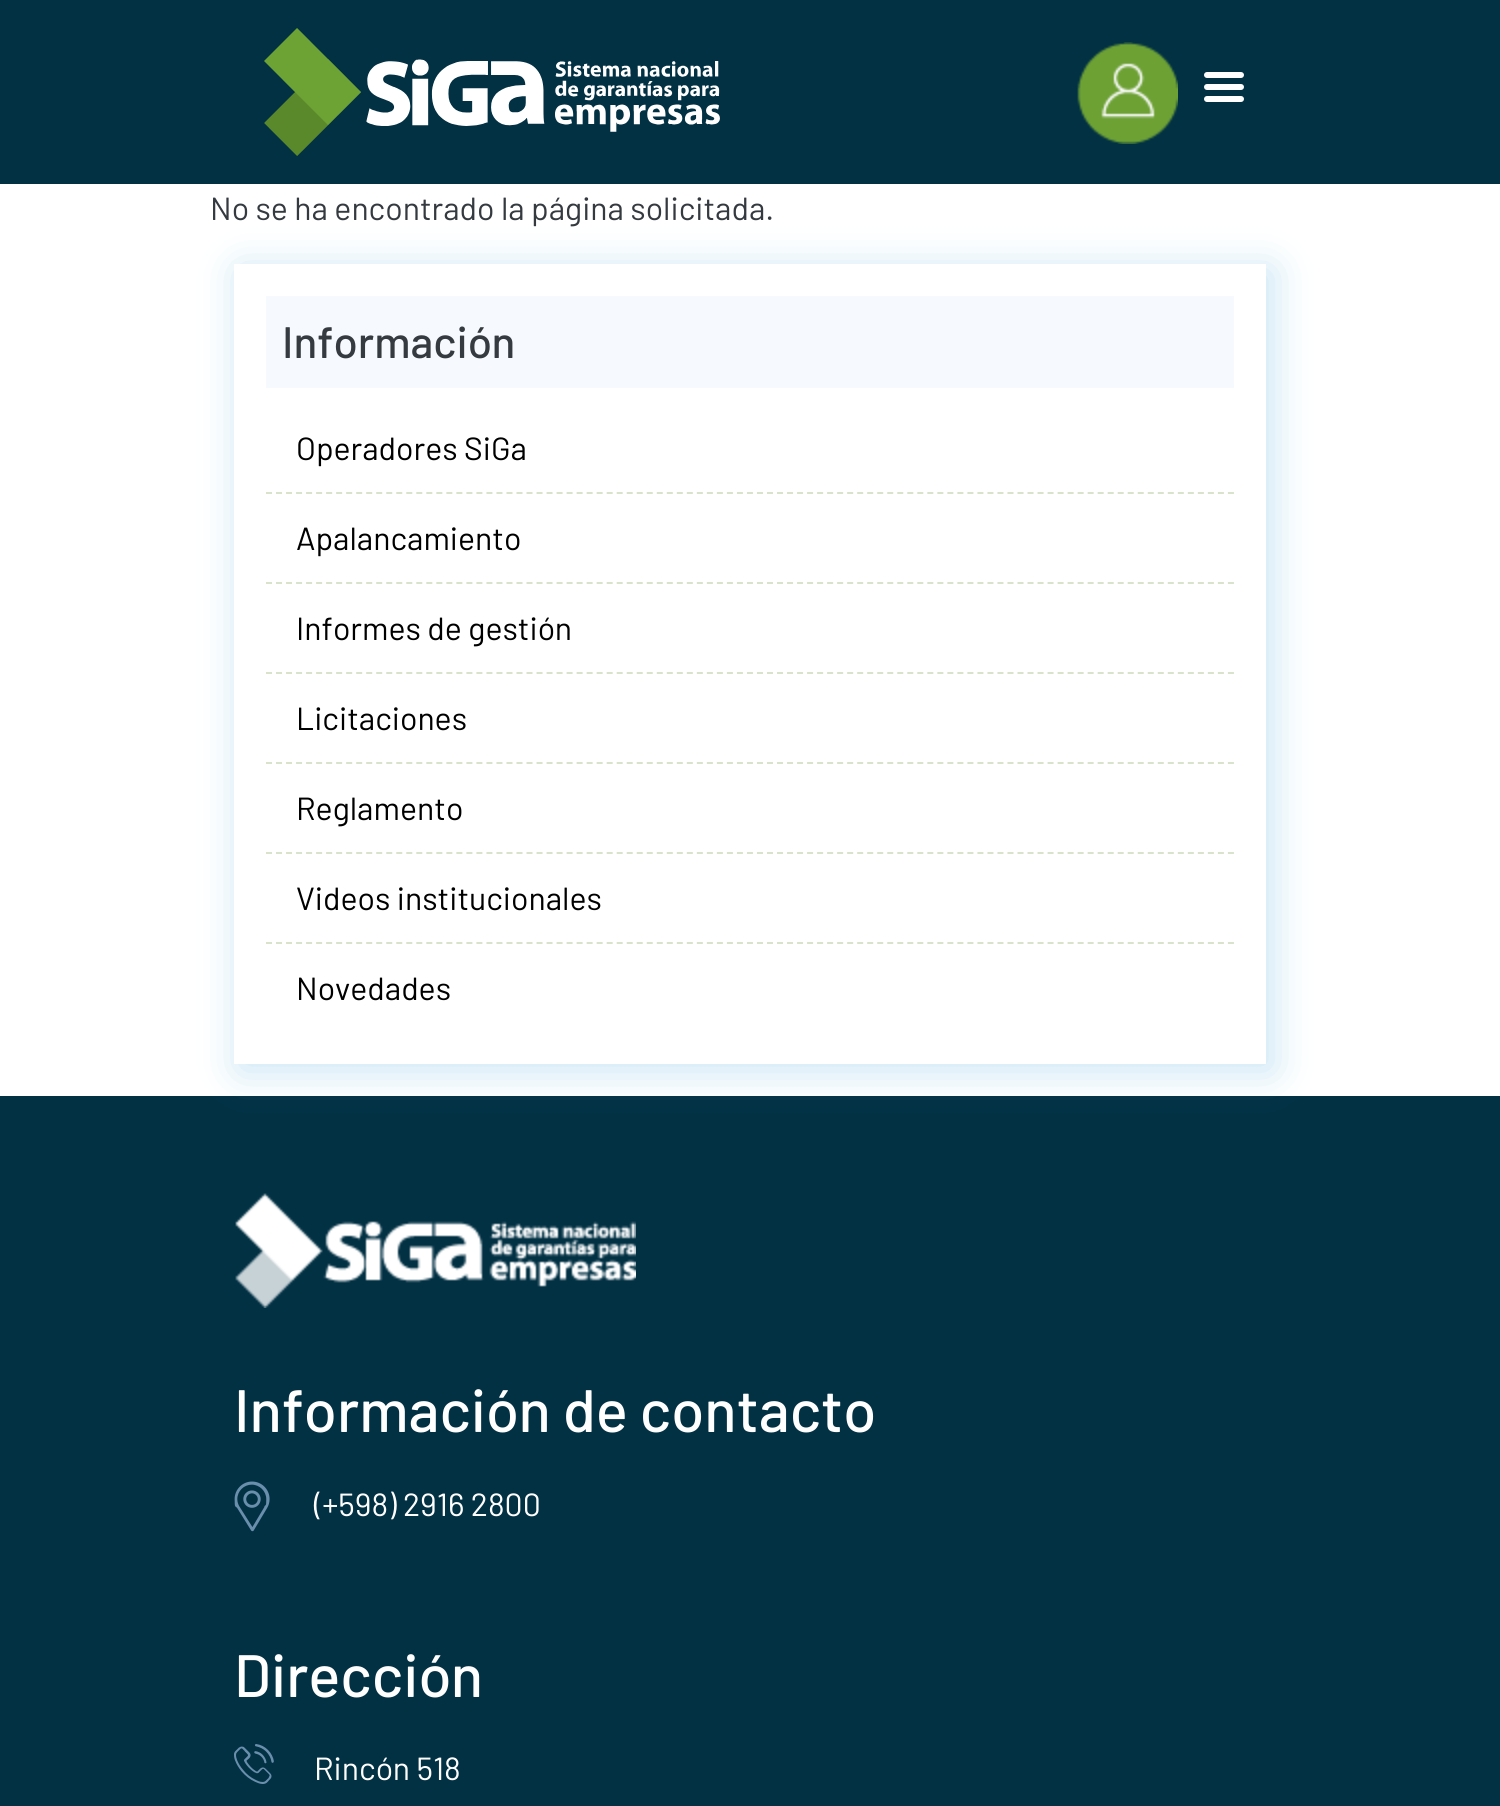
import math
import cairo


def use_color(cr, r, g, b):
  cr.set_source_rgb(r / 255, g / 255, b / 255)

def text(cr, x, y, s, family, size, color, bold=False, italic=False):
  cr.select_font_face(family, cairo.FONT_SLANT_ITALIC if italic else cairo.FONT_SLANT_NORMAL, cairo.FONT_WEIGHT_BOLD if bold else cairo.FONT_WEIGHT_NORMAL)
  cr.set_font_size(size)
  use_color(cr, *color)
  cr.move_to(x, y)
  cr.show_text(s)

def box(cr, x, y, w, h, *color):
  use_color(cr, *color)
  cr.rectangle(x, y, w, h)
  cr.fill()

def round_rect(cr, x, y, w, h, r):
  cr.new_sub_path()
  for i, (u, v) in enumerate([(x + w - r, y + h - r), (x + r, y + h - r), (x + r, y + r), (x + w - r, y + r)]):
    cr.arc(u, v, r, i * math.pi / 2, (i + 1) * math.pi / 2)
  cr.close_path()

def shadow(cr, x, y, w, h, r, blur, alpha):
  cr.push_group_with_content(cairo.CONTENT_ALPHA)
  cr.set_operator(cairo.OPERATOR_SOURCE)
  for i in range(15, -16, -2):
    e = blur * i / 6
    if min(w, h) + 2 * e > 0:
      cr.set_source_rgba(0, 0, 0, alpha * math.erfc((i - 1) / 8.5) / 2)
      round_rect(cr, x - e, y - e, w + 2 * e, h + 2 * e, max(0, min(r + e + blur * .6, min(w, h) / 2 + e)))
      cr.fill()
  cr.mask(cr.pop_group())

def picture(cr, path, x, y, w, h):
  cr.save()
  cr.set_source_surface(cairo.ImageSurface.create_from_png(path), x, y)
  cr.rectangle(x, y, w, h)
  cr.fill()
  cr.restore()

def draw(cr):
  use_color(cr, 255, 255, 255)
  cr.paint()
  box(cr, 0, 0, 1500, 184, 2, 49, 68)
  picture(cr, "img_01.png", 264, 28, 456, 128)
  picture(cr, "img_02.png", 1077, 42, 101, 102)
  use_color(cr, 255, 255, 255)
  round_rect(cr, 1204, 72, 40, 6, 3)
  cr.fill()
  round_rect(cr, 1204, 84, 40, 6, 3)
  cr.fill()
  round_rect(cr, 1204, 96, 40, 6, 3)
  cr.fill()
  box(cr, 0, 1096, 1500, 710, 2, 49, 68)
  cr.save()
  cr.set_fill_rule(cairo.FILL_RULE_EVEN_ODD)
  cr.new_path()
  cr.move_to(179, 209)
  cr.line_to(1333, 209)
  cr.line_to(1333, 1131)
  cr.line_to(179, 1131)
  cr.close_path()
  cr.move_to(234, 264)
  cr.line_to(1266, 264)
  cr.line_to(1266, 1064)
  cr.line_to(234, 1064)
  cr.close_path()
  cr.clip()
  use_color(cr, 67, 166, 220)
  shadow(cr, 240, 270, 1032, 800, 0, 20, 0.3)
  cr.restore()
  box(cr, 266, 296, 968, 92, 246, 249, 253)
  cr.new_path()
  cr.move_to(266, 493)
  cr.line_to(1234, 493)
  use_color(cr, 217, 226, 202)
  cr.set_dash([6, 4.02])
  cr.stroke()
  cr.new_path()
  cr.move_to(266, 583)
  cr.line_to(1234, 583)
  cr.stroke()
  cr.new_path()
  cr.move_to(266, 673)
  cr.line_to(1234, 673)
  cr.stroke()
  cr.new_path()
  cr.move_to(266, 763)
  cr.line_to(1234, 763)
  cr.stroke()
  cr.new_path()
  cr.move_to(266, 853)
  cr.line_to(1234, 853)
  cr.stroke()
  cr.new_path()
  cr.move_to(266, 943)
  cr.line_to(1234, 943)
  cr.stroke()
  picture(cr, "img_03.png", 235, 1193, 401, 115)
  picture(cr, "img_04.png", 234, 1481, 36, 51)
  picture(cr, "img_05.png", 234, 1744, 40, 40)
  text(cr, 210, 220, "No se ha encontrado la página solicitada.", "Barlow", 32, (52, 58, 64))
  text(cr, 282, 358, "Información", "Barlow Medium", 44, (52, 58, 64))
  text(cr, 296, 460, "Operadores SiGa", "Barlow", 32, (0, 0, 0))
  text(cr, 296, 550, "Apalancamiento", "Barlow", 32, (0, 0, 0))
  text(cr, 296, 640, "Informes de gestión", "Barlow", 32, (0, 0, 0))
  text(cr, 296, 730, "Licitaciones", "Barlow", 32, (0, 0, 0))
  text(cr, 296, 820, "Reglamento", "Barlow", 32, (0, 0, 0))
  text(cr, 296, 910, "Videos institucionales", "Barlow", 32, (0, 0, 0))
  text(cr, 296, 1000, "Novedades", "Barlow", 32, (0, 0, 0))
  text(cr, 234, 1432, "Información de contacto", "Barlow Medium", 59.75, (255, 255, 255))
  text(cr, 314, 1516, "(+598) 2916 2800", "Barlow", 32, (255, 255, 255))
  text(cr, 234, 1697, "Dirección", "Barlow Medium", 59.75, (255, 255, 255))
  text(cr, 314, 1780, "Rincón 518", "Barlow", 32, (255, 255, 255))


surface = cairo.ImageSurface(cairo.FORMAT_RGB24, 1500, 1806)
cr = cairo.Context(surface)
options = cairo.FontOptions()
options.set_hint_metrics(cairo.HINT_METRICS_OFF)
options.set_hint_style(cairo.HINT_STYLE_NONE)
cr.set_font_options(options)
cr.set_miter_limit(4)
draw(cr)
surface.write_to_png("out.png")
